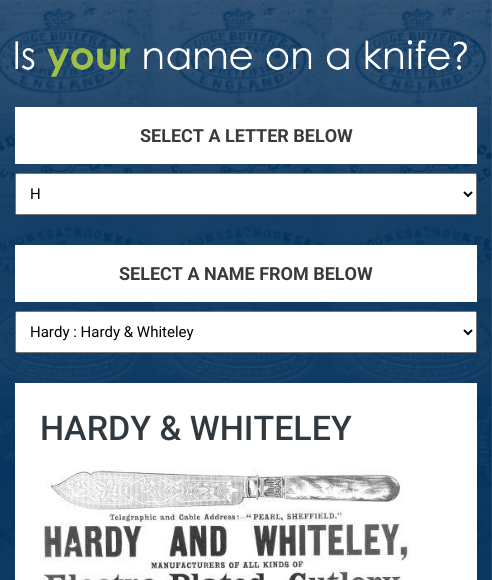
import math
import cairo


def use_color(cr, r, g, b):
  cr.set_source_rgb(r / 255, g / 255, b / 255)

def text(cr, x, y, s, family, size, color, bold=False, italic=False):
  cr.select_font_face(family, cairo.FONT_SLANT_ITALIC if italic else cairo.FONT_SLANT_NORMAL, cairo.FONT_WEIGHT_BOLD if bold else cairo.FONT_WEIGHT_NORMAL)
  cr.set_font_size(size)
  use_color(cr, *color)
  cr.move_to(x, y)
  cr.show_text(s)

def box(cr, x, y, w, h, *color):
  use_color(cr, *color)
  cr.rectangle(x, y, w, h)
  cr.fill()

def round_rect(cr, x, y, w, h, r):
  cr.new_sub_path()
  for i, (u, v) in enumerate([(x + w - r, y + h - r), (x + r, y + h - r), (x + r, y + r), (x + w - r, y + r)]):
    cr.arc(u, v, r, i * math.pi / 2, (i + 1) * math.pi / 2)
  cr.close_path()

def picture(cr, path, x, y, w, h):
  cr.save()
  cr.set_source_surface(cairo.ImageSurface.create_from_png(path), x, y)
  cr.rectangle(x, y, w, h)
  cr.fill()
  cr.restore()

def draw(cr):
  use_color(cr, 255, 255, 255)
  cr.paint()
  picture(cr, "img_01.png", 0, 0, 492, 580)
  picture(cr, "img_02.png", 15, 40, 452, 37)
  box(cr, 15, 107, 462, 57, 255, 255, 255)
  round_rect(cr, 15.5, 173.5, 461, 41, 1.5)
  cr.fill_preserve()
  use_color(cr, 118, 118, 118)
  cr.set_line_width(1)
  cr.stroke()
  cr.new_path()
  cr.move_to(464, 192)
  cr.line_to(468, 196)
  cr.line_to(472, 192)
  use_color(cr, 0, 0, 0)
  cr.set_line_width(2)
  cr.stroke()
  box(cr, 15, 245, 462, 57, 255, 255, 255)
  round_rect(cr, 15.5, 311.5, 461, 41, 1.5)
  cr.fill_preserve()
  use_color(cr, 118, 118, 118)
  cr.set_line_width(1)
  cr.stroke()
  cr.new_path()
  cr.move_to(464, 330)
  cr.line_to(468, 334)
  cr.line_to(472, 330)
  use_color(cr, 0, 0, 0)
  cr.set_line_width(2)
  cr.stroke()
  box(cr, 15, 383, 462, 197, 255, 255, 255)
  picture(cr, "img_03.png", 40, 469, 370, 111)
  text(cr, 140, 142, "SELECT A LETTER BELOW", "Roboto", 18, (58, 58, 58), bold=True)
  text(cr, 30, 199, "H", "Roboto", 15, (0, 0, 0))
  text(cr, 119, 280, "SELECT A NAME FROM BELOW", "Roboto", 18, (58, 58, 58), bold=True)
  text(cr, 30, 337, "Hardy : Hardy & Whiteley", "Roboto", 15, (0, 0, 0))
  text(cr, 40, 440, "HARDY & WHITELEY", "Roboto Medium", 34, (49, 57, 64))


surface = cairo.ImageSurface(cairo.FORMAT_RGB24, 492, 580)
cr = cairo.Context(surface)
options = cairo.FontOptions()
options.set_hint_metrics(cairo.HINT_METRICS_OFF)
options.set_hint_style(cairo.HINT_STYLE_NONE)
cr.set_font_options(options)
cr.set_miter_limit(4)
draw(cr)
surface.write_to_png("out.png")
